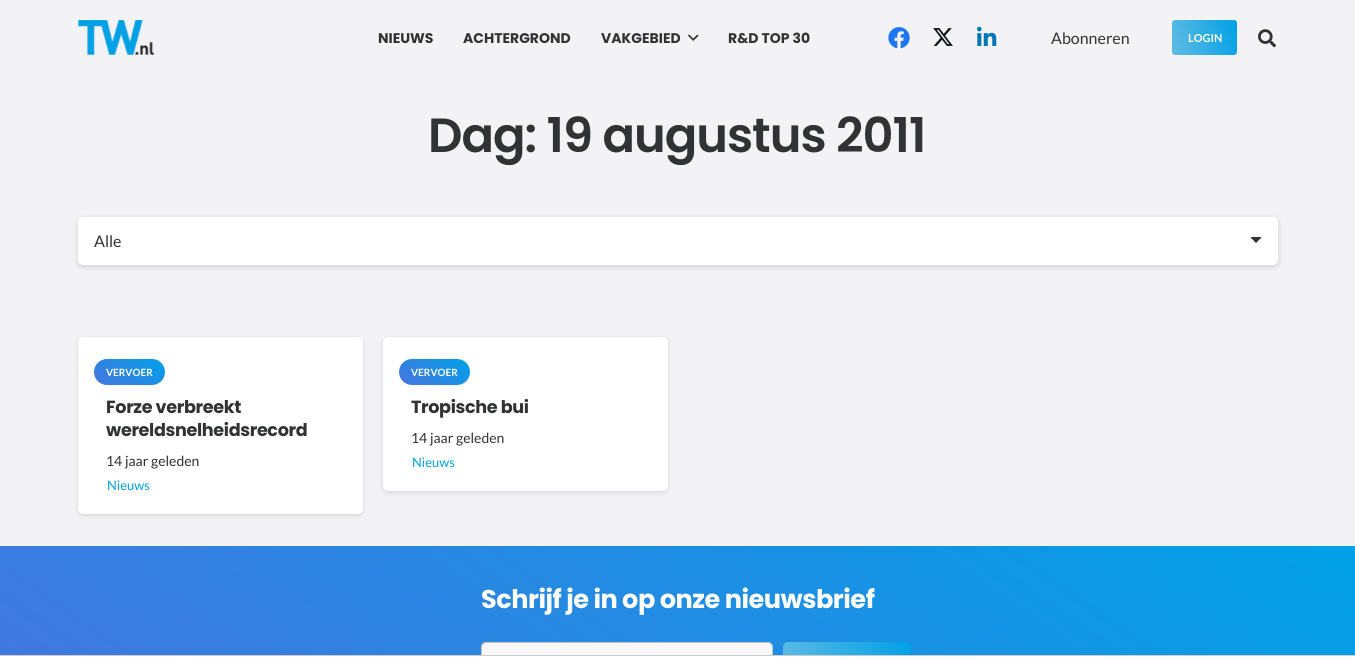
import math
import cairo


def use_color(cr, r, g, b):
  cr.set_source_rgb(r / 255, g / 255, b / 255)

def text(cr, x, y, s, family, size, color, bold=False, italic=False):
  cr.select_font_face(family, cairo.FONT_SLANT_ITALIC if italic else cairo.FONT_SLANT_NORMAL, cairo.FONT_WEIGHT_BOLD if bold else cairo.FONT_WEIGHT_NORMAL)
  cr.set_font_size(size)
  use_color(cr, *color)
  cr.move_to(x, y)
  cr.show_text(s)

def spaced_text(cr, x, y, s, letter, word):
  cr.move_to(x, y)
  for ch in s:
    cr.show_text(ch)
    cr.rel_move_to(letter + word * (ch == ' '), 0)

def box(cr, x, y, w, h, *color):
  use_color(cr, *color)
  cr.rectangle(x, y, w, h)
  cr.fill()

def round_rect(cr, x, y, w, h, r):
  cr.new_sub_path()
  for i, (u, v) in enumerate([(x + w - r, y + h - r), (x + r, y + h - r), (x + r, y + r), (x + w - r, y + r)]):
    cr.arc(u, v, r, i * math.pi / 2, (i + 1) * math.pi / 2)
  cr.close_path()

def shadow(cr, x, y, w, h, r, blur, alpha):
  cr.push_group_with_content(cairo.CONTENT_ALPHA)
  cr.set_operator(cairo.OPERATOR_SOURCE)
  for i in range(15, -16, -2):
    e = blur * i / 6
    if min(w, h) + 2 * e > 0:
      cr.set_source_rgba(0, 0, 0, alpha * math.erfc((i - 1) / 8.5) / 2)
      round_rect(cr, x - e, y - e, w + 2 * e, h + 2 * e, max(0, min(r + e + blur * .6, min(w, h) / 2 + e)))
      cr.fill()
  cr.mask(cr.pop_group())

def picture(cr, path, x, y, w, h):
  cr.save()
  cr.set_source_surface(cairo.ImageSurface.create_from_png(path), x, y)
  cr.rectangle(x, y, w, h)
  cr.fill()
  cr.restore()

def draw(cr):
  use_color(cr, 243, 242, 245)
  cr.paint()
  picture(cr, "img_01.png", 77, 20, 77, 35)
  picture(cr, "img_02.png", 688, 34, 11, 7)
  picture(cr, "img_03.png", 888, 27, 22, 22)
  picture(cr, "img_04.png", 933, 28, 20, 18)
  picture(cr, "img_05.png", 977, 26, 20, 20)
  gradient = cairo.LinearGradient(1170, 47, 1239, 28)
  gradient.add_color_stop_rgba(0, 0.384, 0.733, 0.89, 1)
  gradient.add_color_stop_rgba(1, 0, 0.631, 0.906, 1)
  cr.set_source(gradient)
  round_rect(cr, 1172, 20, 65, 35, 3)
  cr.fill()
  picture(cr, "img_06.png", 1258, 29, 18, 19)
  use_color(cr, 0, 0, 0)
  shadow(cr, 78, 219, 1200, 48, 5, 3, 0.15)
  use_color(cr, 255, 255, 255)
  round_rect(cr, 78, 217, 1200, 48, 5)
  cr.fill()
  use_color(cr, 49, 50, 51)
  cr.new_path()
  cr.move_to(1252, 237)
  cr.line_to(1250.5, 237.5)
  cr.line_to(1256, 243)
  cr.line_to(1261.5, 237.5)
  cr.curve_to(1261, 237, 1260, 237, 1258.5, 237)
  cr.close_path()
  cr.fill()
  use_color(cr, 0, 0, 0)
  shadow(cr, 78, 339, 285, 177, 5, 2.5, 0.1)
  shadow(cr, 78, 337, 285, 177, 5, 0.5, 0.1)
  use_color(cr, 255, 255, 255)
  round_rect(cr, 78, 337, 285, 177, 5)
  cr.fill()
  gradient = cairo.LinearGradient(147, 347, 112, 397)
  gradient.add_color_stop_rgba(0, 0, 0.631, 0.906, 1)
  gradient.add_color_stop_rgba(1, 0.278, 0.455, 0.871, 1)
  cr.set_source(gradient)
  round_rect(cr, 94, 359, 71, 26, 13)
  cr.fill()
  use_color(cr, 0, 0, 0)
  shadow(cr, 383, 339, 285, 154, 5, 2.5, 0.1)
  shadow(cr, 383, 337, 285, 154, 5, 0.5, 0.1)
  use_color(cr, 255, 255, 255)
  round_rect(cr, 383, 337, 285, 154, 5)
  cr.fill()
  gradient = cairo.LinearGradient(452, 347, 417, 397)
  gradient.add_color_stop_rgba(0, 0, 0.631, 0.906, 1)
  gradient.add_color_stop_rgba(1, 0.278, 0.455, 0.871, 1)
  cr.set_source(gradient)
  round_rect(cr, 399, 359, 71, 26, 13)
  cr.fill()
  gradient = cairo.LinearGradient(949, 262, 406, 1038)
  gradient.add_color_stop_rgba(0, 0, 0.631, 0.906, 1)
  gradient.add_color_stop_rgba(1, 0.278, 0.455, 0.871, 1)
  cr.set_source(gradient)
  cr.rectangle(0, 546, 1355, 109)
  cr.fill()
  use_color(cr, 247, 247, 247)
  round_rect(cr, 481.5, 642.5, 291, 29, 4.5)
  cr.fill_preserve()
  use_color(cr, 196, 196, 196)
  cr.set_line_width(1)
  cr.stroke()
  gradient = cairo.LinearGradient(781, 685, 913, 649)
  gradient.add_color_stop_rgba(0, 0.384, 0.733, 0.89, 1)
  gradient.add_color_stop_rgba(1, 0, 0.631, 0.906, 1)
  cr.set_source(gradient)
  round_rect(cr, 783, 642, 128, 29, 5)
  cr.fill()
  box(cr, 0, 656, 1355, 10, 255, 255, 255)
  box(cr, 0, 655, 1355, 1, 204, 204, 204)
  text(cr, 378, 43, "NIEUWS", "Poppins", 14, (49, 50, 51), bold=True)
  text(cr, 463, 43, "ACHTERGROND", "Poppins", 14, (49, 50, 51), bold=True)
  text(cr, 601, 43, "VAKGEBIED", "Poppins", 14, (49, 50, 51), bold=True)
  text(cr, 728, 43, "R&D TOP 30", "Poppins", 14, (49, 50, 51), bold=True)
  text(cr, 1051, 44, "Abonneren", "Lato", 16, (49, 50, 51))
  text(cr, 1188, 42, "LOGIN", "Lato", 11, (255, 255, 255), bold=True)
  cr.select_font_face("Poppins SemiBold")
  cr.set_font_size(48)
  use_color(cr, 49, 50, 51)
  spaced_text(cr, 428, 152, "Dag: 19 augustus 2011", -1, 0)
  text(cr, 94, 247, "Alle", "Lato", 16, (49, 50, 51))
  text(cr, 106, 376, "VERVOER", "Lato", 10, (255, 255, 255), bold=True)
  cr.select_font_face("Poppins", cairo.FONT_SLANT_NORMAL, cairo.FONT_WEIGHT_BOLD)
  cr.set_font_size(17.6)
  use_color(cr, 49, 50, 51)
  spaced_text(cr, 106, 413, "Forze verbreekt", -0.35, 0)
  spaced_text(cr, 106, 436, "wereldsnelheidsrecord", -0.35, 0)
  text(cr, 106, 466, "14 jaar geleden", "Lato", 14, (49, 50, 51))
  text(cr, 107, 490, "Nieuws", "Lato", 13, (0, 161, 231))
  text(cr, 411, 376, "VERVOER", "Lato", 10, (255, 255, 255), bold=True)
  cr.select_font_face("Poppins", cairo.FONT_SLANT_NORMAL, cairo.FONT_WEIGHT_BOLD)
  cr.set_font_size(17.6)
  use_color(cr, 49, 50, 51)
  spaced_text(cr, 411, 413, "Tropische bui", -0.35, 0)
  text(cr, 411, 443, "14 jaar geleden", "Lato", 14, (49, 50, 51))
  text(cr, 412, 467, "Nieuws", "Lato", 13, (0, 161, 231))
  cr.select_font_face("Poppins", cairo.FONT_SLANT_NORMAL, cairo.FONT_WEIGHT_BOLD)
  cr.set_font_size(25.6)
  use_color(cr, 255, 255, 255)
  spaced_text(cr, 481, 608, "Schrijf je in op onze nieuwsbrief", -0.5, 0)


surface = cairo.ImageSurface(cairo.FORMAT_RGB24, 1355, 666)
cr = cairo.Context(surface)
options = cairo.FontOptions()
options.set_hint_metrics(cairo.HINT_METRICS_OFF)
options.set_hint_style(cairo.HINT_STYLE_NONE)
cr.set_font_options(options)
cr.set_miter_limit(4)
draw(cr)
surface.write_to_png("out.png")
